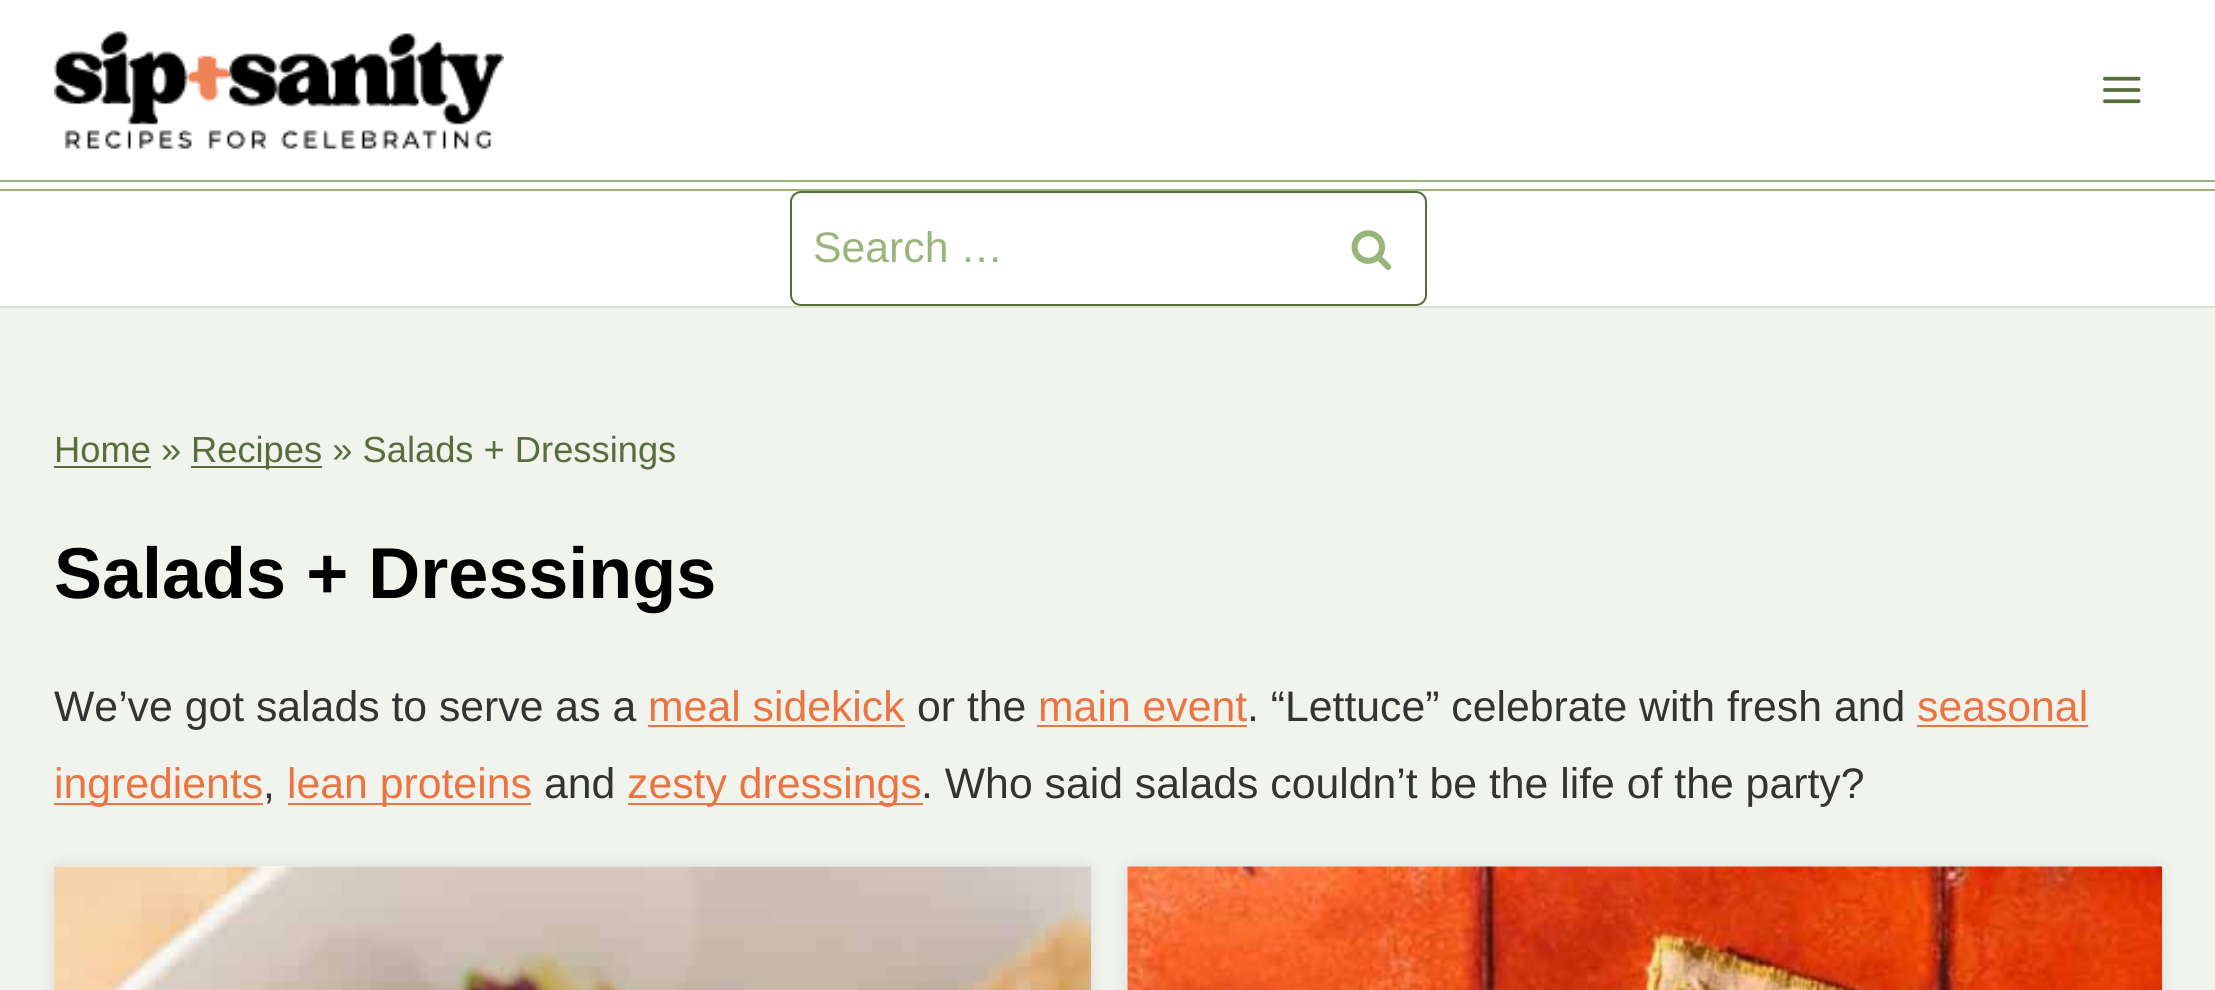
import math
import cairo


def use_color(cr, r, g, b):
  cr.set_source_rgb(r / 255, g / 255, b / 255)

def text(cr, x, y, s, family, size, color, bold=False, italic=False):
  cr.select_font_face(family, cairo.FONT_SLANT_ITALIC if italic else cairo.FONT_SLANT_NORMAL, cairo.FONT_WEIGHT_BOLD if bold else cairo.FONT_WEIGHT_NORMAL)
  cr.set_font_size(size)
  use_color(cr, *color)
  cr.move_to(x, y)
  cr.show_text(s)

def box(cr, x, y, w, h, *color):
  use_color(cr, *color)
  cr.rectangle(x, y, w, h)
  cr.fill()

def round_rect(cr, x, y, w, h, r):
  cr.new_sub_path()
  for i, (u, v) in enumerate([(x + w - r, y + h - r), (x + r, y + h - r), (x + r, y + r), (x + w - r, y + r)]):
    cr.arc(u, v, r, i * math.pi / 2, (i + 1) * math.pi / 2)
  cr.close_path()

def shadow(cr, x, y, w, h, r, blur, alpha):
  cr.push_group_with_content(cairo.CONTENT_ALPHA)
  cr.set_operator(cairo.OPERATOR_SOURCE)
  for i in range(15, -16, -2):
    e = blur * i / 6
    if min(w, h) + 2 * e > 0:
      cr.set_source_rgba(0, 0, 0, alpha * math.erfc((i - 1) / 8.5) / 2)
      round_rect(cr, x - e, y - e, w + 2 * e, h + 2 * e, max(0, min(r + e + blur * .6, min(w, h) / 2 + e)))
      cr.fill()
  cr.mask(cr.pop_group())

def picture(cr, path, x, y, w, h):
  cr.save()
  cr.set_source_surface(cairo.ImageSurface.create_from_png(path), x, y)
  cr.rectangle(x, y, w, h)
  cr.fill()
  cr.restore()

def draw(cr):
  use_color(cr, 241, 244, 237)
  cr.paint()
  box(cr, 0, 0, 2215, 306, 255, 255, 255)
  box(cr, 0, 180, 2215, 2, 153, 181, 122)
  picture(cr, "img_01.png", 54, 31, 450, 119)
  picture(cr, "img_02.png", 2103, 76, 38, 28)
  box(cr, 0, 189, 2215, 2, 153, 181, 122)
  box(cr, 0, 306, 2215, 2, 216, 226, 204)
  round_rect(cr, 791, 192, 635, 113, 10)
  use_color(cr, 87, 109, 60)
  cr.stroke()
  picture(cr, "img_03.png", 1351, 230, 41, 40)
  box(cr, 54, 466, 97, 2, 87, 109, 60)
  box(cr, 191, 466, 131, 2, 87, 109, 60)
  box(cr, 648, 725, 257, 2, 236, 115, 66)
  box(cr, 1037, 725, 210, 2, 236, 115, 66)
  box(cr, 1917, 725, 171, 2, 236, 115, 66)
  box(cr, 54, 803, 209, 2, 236, 115, 66)
  box(cr, 288, 803, 243, 2, 236, 115, 66)
  box(cr, 628, 803, 295, 2, 236, 115, 66)
  use_color(cr, 0, 0, 0)
  shadow(cr, 54, 866, 1037, 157, 9, 8, 0.1)
  use_color(cr, 255, 255, 255)
  round_rect(cr, 54, 866, 1037, 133, 9)
  cr.fill()
  picture(cr, "img_04.png", 54, 866, 1038, 124)
  use_color(cr, 0, 0, 0)
  shadow(cr, 1127, 866, 1035, 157, 9, 8, 0.1)
  use_color(cr, 255, 255, 255)
  round_rect(cr, 1127, 866, 1035, 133, 9)
  cr.fill()
  picture(cr, "img_05.png", 1127, 866, 1036, 124)
  text(cr, 813, 262, "Search …", "Liberation Sans", 42.75, (153, 181, 122))
  text(cr, 54, 462, "Home »", "Liberation Sans", 36.3, (87, 109, 60))
  text(cr, 191, 462, "Recipes » Salads + Dressings", "Liberation Sans", 36.3, (87, 109, 60))
  text(cr, 54, 598, "Salads + Dressings", "Liberation Sans", 72, (0, 0, 0), bold=True)
  text(cr, 54, 721, "We’ve got salads to serve as a", "Liberation Sans", 42.75, (51, 51, 51))
  text(cr, 648, 721, "meal sidekick", "Liberation Sans", 42.75, (236, 115, 66))
  text(cr, 917, 721, "or the", "Liberation Sans", 42.75, (51, 51, 51))
  text(cr, 1038, 721, "main event", "Liberation Sans", 42.75, (236, 115, 66))
  text(cr, 1247, 721, ". “Lettuce” celebrate with fresh and", "Liberation Sans", 42.75, (51, 51, 51))
  text(cr, 1917, 721, "seasonal", "Liberation Sans", 42.75, (236, 115, 66))
  text(cr, 54, 798, "ingredients", "Liberation Sans", 42.75, (236, 115, 66))
  text(cr, 263, 798, ",", "Liberation Sans", 42.75, (51, 51, 51))
  text(cr, 287, 798, "lean proteins", "Liberation Sans", 42.75, (236, 115, 66))
  text(cr, 544, 798, "and", "Liberation Sans", 42.75, (51, 51, 51))
  text(cr, 627, 798, "zesty dressings", "Liberation Sans", 42.75, (236, 115, 66))
  text(cr, 921, 798, ". Who said salads couldn’t be the life of the party?", "Liberation Sans", 42.75, (51, 51, 51))


surface = cairo.ImageSurface(cairo.FORMAT_RGB24, 2215, 990)
cr = cairo.Context(surface)
options = cairo.FontOptions()
options.set_hint_metrics(cairo.HINT_METRICS_OFF)
options.set_hint_style(cairo.HINT_STYLE_NONE)
cr.set_font_options(options)
cr.set_miter_limit(4)
draw(cr)
surface.write_to_png("out.png")
